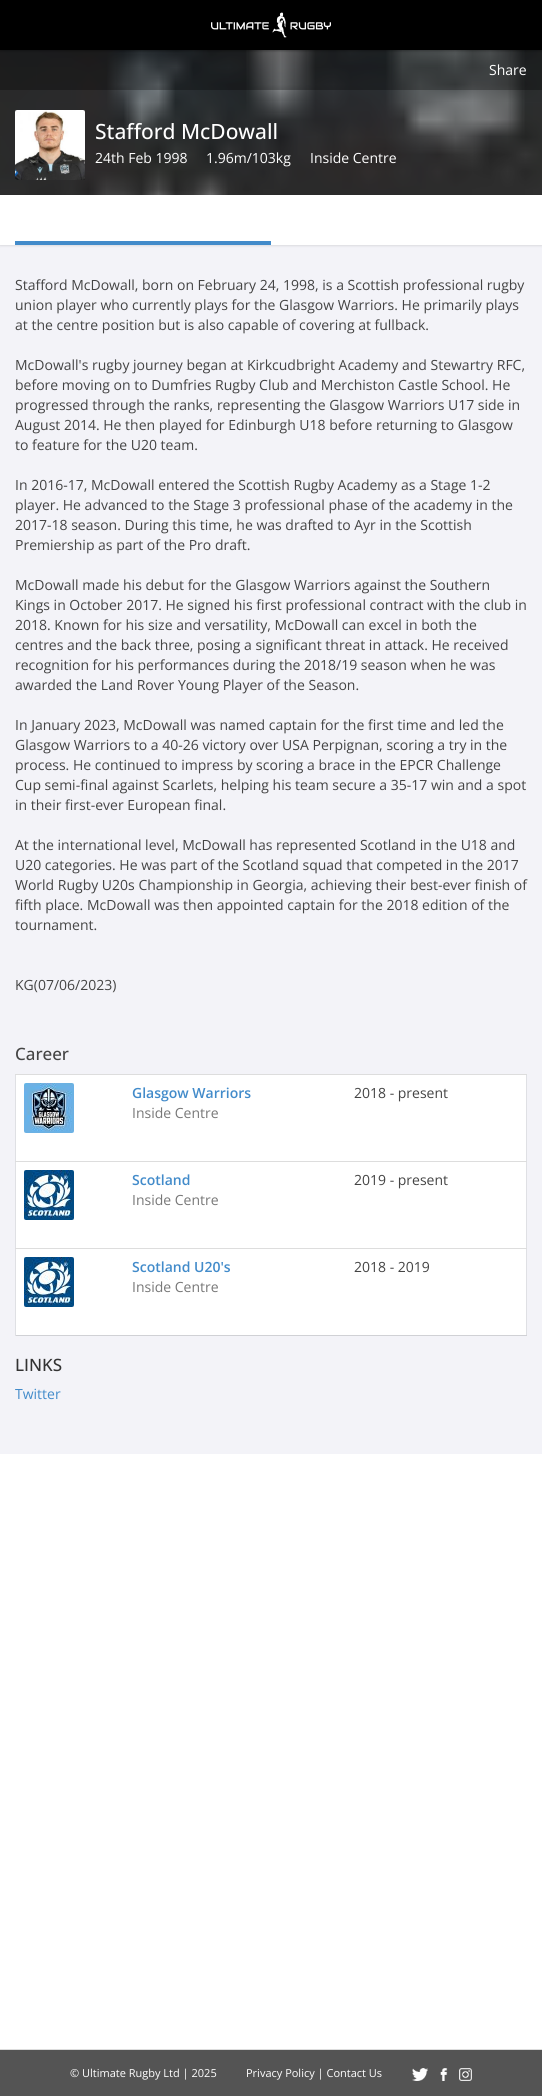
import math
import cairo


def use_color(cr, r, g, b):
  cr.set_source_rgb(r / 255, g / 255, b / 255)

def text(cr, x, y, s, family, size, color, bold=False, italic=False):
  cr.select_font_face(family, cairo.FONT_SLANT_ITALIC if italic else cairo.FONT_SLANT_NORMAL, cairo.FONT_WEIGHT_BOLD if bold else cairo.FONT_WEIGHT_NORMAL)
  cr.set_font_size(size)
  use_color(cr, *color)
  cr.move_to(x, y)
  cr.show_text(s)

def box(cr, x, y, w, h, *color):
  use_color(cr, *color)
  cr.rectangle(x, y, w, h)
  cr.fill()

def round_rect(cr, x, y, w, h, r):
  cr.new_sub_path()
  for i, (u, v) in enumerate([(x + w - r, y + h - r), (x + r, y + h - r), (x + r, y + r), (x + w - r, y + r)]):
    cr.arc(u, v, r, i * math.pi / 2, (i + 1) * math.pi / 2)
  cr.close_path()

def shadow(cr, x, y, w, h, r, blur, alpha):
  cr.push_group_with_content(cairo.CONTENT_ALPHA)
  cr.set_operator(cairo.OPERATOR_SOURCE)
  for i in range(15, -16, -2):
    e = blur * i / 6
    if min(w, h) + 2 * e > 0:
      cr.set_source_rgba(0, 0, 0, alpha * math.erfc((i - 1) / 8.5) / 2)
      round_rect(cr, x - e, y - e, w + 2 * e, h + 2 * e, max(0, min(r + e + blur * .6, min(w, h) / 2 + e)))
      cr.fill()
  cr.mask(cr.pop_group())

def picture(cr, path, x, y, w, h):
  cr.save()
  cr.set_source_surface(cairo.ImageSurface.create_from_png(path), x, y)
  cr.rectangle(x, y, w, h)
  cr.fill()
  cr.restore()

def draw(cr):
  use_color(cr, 255, 255, 255)
  cr.paint()
  box(cr, 0, 50, 542, 145, 34, 34, 34)
  picture(cr, "img_02.png", 0, 50, 542, 145)
  cr.set_source_rgba(0, 0, 0, 0.3)
  cr.rectangle(0, 50, 542, 40)
  cr.fill()
  use_color(cr, 0, 0, 0)
  shadow(cr, 0, 1, 542, 50, 0, 1, 0.3)
  box(cr, 0, 0, 542, 50, 0, 0, 0)
  picture(cr, "img_01.png", 211, 12, 120, 26)
  box(cr, 0, 245, 542, 1209, 243, 243, 248)
  picture(cr, "img_03.png", 15, 110, 70, 70)
  use_color(cr, 0, 0, 0)
  shadow(cr, 0, 196, 542, 50, 0, 1, 0.1)
  box(cr, 0, 195, 542, 50, 255, 255, 255)
  box(cr, 15, 241, 256, 4, 66, 139, 202)
  box(cr, 16, 1075, 510, 260, 255, 255, 255)
  box(cr, 526, 1074, 1, 262, 223, 224, 228)
  box(cr, 15, 1335, 512, 1, 208, 209, 213)
  box(cr, 15, 1074, 1, 262, 223, 224, 228)
  picture(cr, "img_04.png", 24, 1083, 50, 50)
  box(cr, 15, 1074, 512, 1, 221, 221, 221)
  picture(cr, "img_05.png", 24, 1170, 50, 50)
  box(cr, 15, 1161, 512, 1, 221, 221, 221)
  picture(cr, "img_05.png", 24, 1257, 50, 50)
  box(cr, 15, 1248, 512, 1, 221, 221, 221)
  box(cr, 0, 2050, 542, 46, 84, 84, 84)
  box(cr, 0, 2049, 542, 1, 221, 221, 221)
  picture(cr, "img_06.png", 412, 2068, 16, 13)
  picture(cr, "img_07.png", 440, 2068, 8, 13)
  picture(cr, "img_08.png", 459, 2068, 13, 13)
  text(cr, 489, 75, "Share", "Open Sans", 14, (255, 255, 255))
  text(cr, 95, 139, "Stafford McDowall", "Open Sans Medium", 21, (255, 255, 255))
  text(cr, 95, 163, "24th Feb 1998", "Open Sans", 14, (255, 255, 255))
  text(cr, 206, 163, "1.96m/103kg", "Open Sans", 14, (255, 255, 255))
  text(cr, 310, 163, "Inside Centre", "Open Sans", 14, (255, 255, 255))
  text(cr, 15, 290, "Stafford McDowall, born on February 24, 1998, is a Scottish professional rugby", "Open Sans", 14, (68, 68, 68))
  text(cr, 15, 310, "union player who currently plays for the Glasgow Warriors. He primarily plays", "Open Sans", 14, (68, 68, 68))
  text(cr, 15, 330, "at the centre position but is also capable of covering at fullback.", "Open Sans", 14, (68, 68, 68))
  text(cr, 15, 370, "McDowall's rugby journey began at Kirkcudbright Academy and Stewartry RFC,", "Open Sans", 14, (68, 68, 68))
  text(cr, 15, 390, "before moving on to Dumfries Rugby Club and Merchiston Castle School. He", "Open Sans", 14, (68, 68, 68))
  text(cr, 15, 410, "progressed through the ranks, representing the Glasgow Warriors U17 side in", "Open Sans", 14, (68, 68, 68))
  text(cr, 15, 430, "August 2014. He then played for Edinburgh U18 before returning to Glasgow", "Open Sans", 14, (68, 68, 68))
  text(cr, 15, 450, "to feature for the U20 team.", "Open Sans", 14, (68, 68, 68))
  text(cr, 15, 490, "In 2016-17, McDowall entered the Scottish Rugby Academy as a Stage 1-2", "Open Sans", 14, (68, 68, 68))
  text(cr, 15, 510, "player. He advanced to the Stage 3 professional phase of the academy in the", "Open Sans", 14, (68, 68, 68))
  text(cr, 15, 530, "2017-18 season. During this time, he was drafted to Ayr in the Scottish", "Open Sans", 14, (68, 68, 68))
  text(cr, 15, 550, "Premiership as part of the Pro draft.", "Open Sans", 14, (68, 68, 68))
  text(cr, 15, 590, "McDowall made his debut for the Glasgow Warriors against the Southern", "Open Sans", 14, (68, 68, 68))
  text(cr, 15, 610, "Kings in October 2017. He signed his first professional contract with the club in", "Open Sans", 14, (68, 68, 68))
  text(cr, 15, 630, "2018. Known for his size and versatility, McDowall can excel in both the", "Open Sans", 14, (68, 68, 68))
  text(cr, 15, 650, "centres and the back three, posing a significant threat in attack. He received", "Open Sans", 14, (68, 68, 68))
  text(cr, 15, 670, "recognition for his performances during the 2018/19 season when he was", "Open Sans", 14, (68, 68, 68))
  text(cr, 15, 690, "awarded the Land Rover Young Player of the Season.", "Open Sans", 14, (68, 68, 68))
  text(cr, 15, 730, "In January 2023, McDowall was named captain for the first time and led the", "Open Sans", 14, (68, 68, 68))
  text(cr, 15, 750, "Glasgow Warriors to a 40-26 victory over USA Perpignan, scoring a try in the", "Open Sans", 14, (68, 68, 68))
  text(cr, 15, 770, "process. He continued to impress by scoring a brace in the EPCR Challenge", "Open Sans", 14, (68, 68, 68))
  text(cr, 15, 790, "Cup semi-final against Scarlets, helping his team secure a 35-17 win and a spot", "Open Sans", 14, (68, 68, 68))
  text(cr, 15, 810, "in their first-ever European final.", "Open Sans", 14, (68, 68, 68))
  text(cr, 15, 850, "At the international level, McDowall has represented Scotland in the U18 and", "Open Sans", 14, (68, 68, 68))
  text(cr, 15, 870, "U20 categories. He was part of the Scotland squad that competed in the 2017", "Open Sans", 14, (68, 68, 68))
  text(cr, 15, 890, "World Rugby U20s Championship in Georgia, achieving their best-ever finish of", "Open Sans", 14, (68, 68, 68))
  text(cr, 15, 910, "fifth place. McDowall was then appointed captain for the 2018 edition of the", "Open Sans", 14, (68, 68, 68))
  text(cr, 15, 930, "tournament.", "Open Sans", 14, (68, 68, 68))
  text(cr, 15, 990, "KG(07/06/2023)", "Open Sans", 14, (68, 68, 68))
  text(cr, 15, 1060, "Career", "Open Sans Medium", 17, (68, 68, 68))
  text(cr, 132, 1098, "Glasgow Warriors", "Open Sans SemiBold", 14, (66, 139, 202))
  text(cr, 132, 1118, "Inside Centre", "Open Sans", 14, (119, 119, 119))
  text(cr, 354, 1098, "2018 - present", "Open Sans", 14, (68, 68, 68))
  text(cr, 132, 1185, "Scotland", "Open Sans SemiBold", 14, (66, 139, 202))
  text(cr, 132, 1205, "Inside Centre", "Open Sans", 14, (119, 119, 119))
  text(cr, 354, 1185, "2019 - present", "Open Sans", 14, (68, 68, 68))
  text(cr, 132, 1272, "Scotland U20's", "Open Sans SemiBold", 14, (66, 139, 202))
  text(cr, 132, 1292, "Inside Centre", "Open Sans", 14, (119, 119, 119))
  text(cr, 354, 1272, "2018 - 2019", "Open Sans", 14, (68, 68, 68))
  text(cr, 15, 1371, "LINKS", "Open Sans Medium", 17, (51, 51, 51))
  text(cr, 15, 1399, "Twitter", "Open Sans", 14, (66, 139, 202))
  text(cr, 70, 2077, "© Ultimate Rugby Ltd | 2025", "Open Sans", 11, (255, 255, 255))
  text(cr, 246, 2077, "Privacy Policy | Contact Us", "Open Sans", 11, (255, 255, 255))


surface = cairo.ImageSurface(cairo.FORMAT_RGB24, 542, 2096)
cr = cairo.Context(surface)
options = cairo.FontOptions()
options.set_hint_metrics(cairo.HINT_METRICS_OFF)
options.set_hint_style(cairo.HINT_STYLE_NONE)
cr.set_font_options(options)
cr.set_miter_limit(4)
draw(cr)
surface.write_to_png("out.png")
